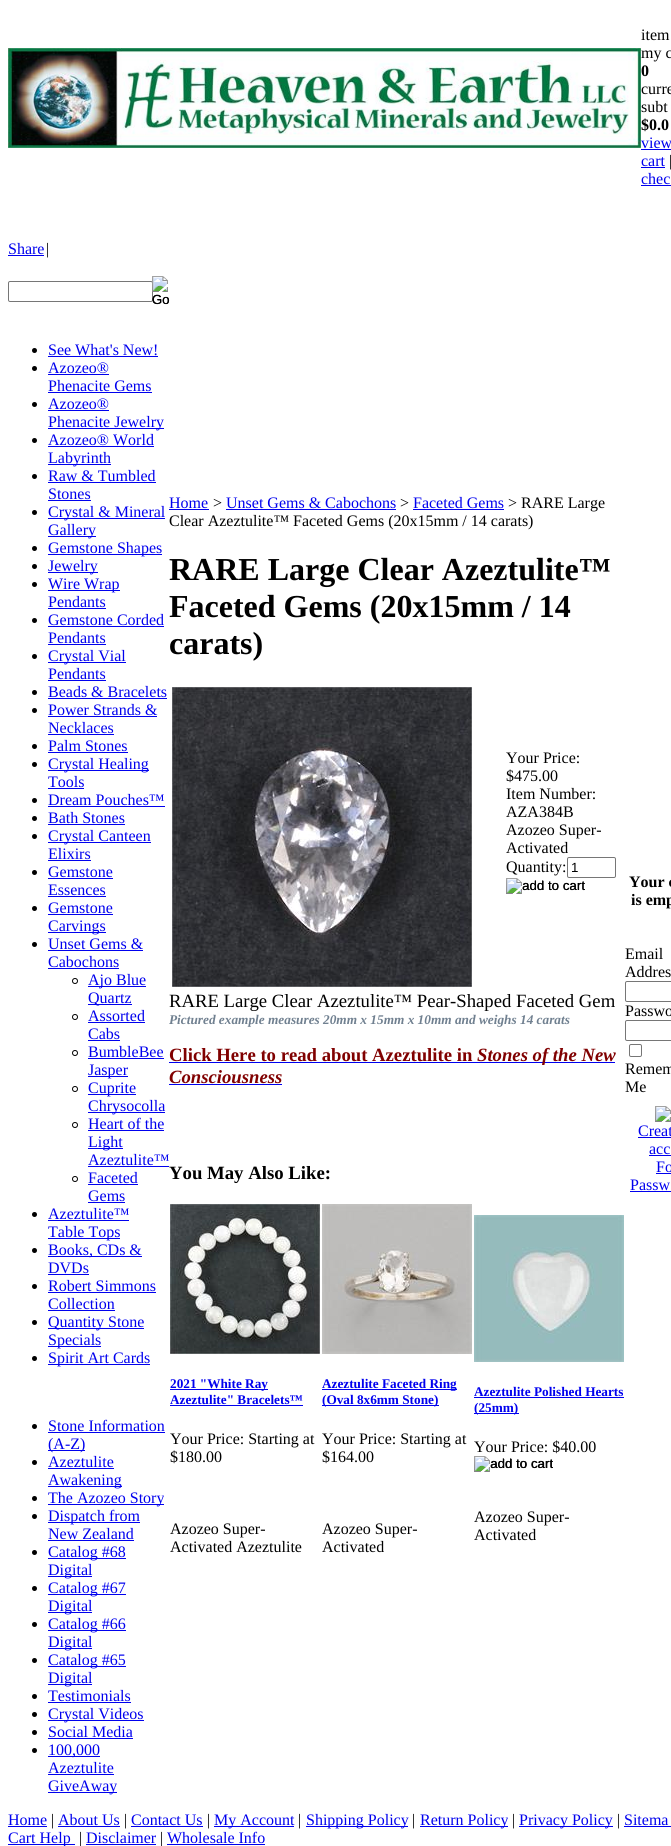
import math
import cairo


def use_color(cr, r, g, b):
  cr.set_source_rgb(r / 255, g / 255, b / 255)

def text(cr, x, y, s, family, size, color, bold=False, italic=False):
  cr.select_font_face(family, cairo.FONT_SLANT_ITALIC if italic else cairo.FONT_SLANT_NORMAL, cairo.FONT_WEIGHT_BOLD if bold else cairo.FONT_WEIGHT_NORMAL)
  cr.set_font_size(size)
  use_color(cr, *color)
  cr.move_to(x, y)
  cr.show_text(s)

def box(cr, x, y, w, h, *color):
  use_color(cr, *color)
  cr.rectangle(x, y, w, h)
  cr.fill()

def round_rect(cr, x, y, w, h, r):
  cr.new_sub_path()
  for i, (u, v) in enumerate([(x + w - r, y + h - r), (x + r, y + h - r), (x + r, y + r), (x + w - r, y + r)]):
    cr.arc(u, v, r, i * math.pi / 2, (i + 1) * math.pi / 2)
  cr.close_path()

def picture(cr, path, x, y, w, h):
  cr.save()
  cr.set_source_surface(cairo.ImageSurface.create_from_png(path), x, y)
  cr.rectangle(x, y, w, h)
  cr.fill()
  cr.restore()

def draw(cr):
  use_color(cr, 255, 255, 255)
  cr.paint()
  picture(cr, "img_01.png", 8, 48, 633, 100)
  box(cr, 641, 149, 30, 1, 0, 0, 238)
  box(cr, 641, 167, 24, 1, 0, 0, 238)
  box(cr, 641, 185, 30, 1, 0, 0, 238)
  box(cr, 8, 255, 36, 1, 0, 0, 238)
  round_rect(cr, 8.5, 281.5, 144, 20, 1.5)
  use_color(cr, 118, 118, 118)
  cr.set_line_width(1)
  cr.stroke()
  picture(cr, "img_02.png", 152, 276, 17, 28)
  use_color(cr, 0, 0, 0)
  cr.arc(34.5, 350.5, 2.5, 0, 2 * math.pi)
  cr.fill()
  box(cr, 48, 356, 110, 1, 0, 0, 238)
  use_color(cr, 0, 0, 0)
  cr.arc(34.5, 368.5, 2.5, 0, 2 * math.pi)
  cr.fill()
  box(cr, 48, 374, 61, 1, 0, 0, 238)
  box(cr, 48, 392, 104, 1, 0, 0, 238)
  use_color(cr, 0, 0, 0)
  cr.arc(34.5, 404.5, 2.5, 0, 2 * math.pi)
  cr.fill()
  box(cr, 48, 410, 61, 1, 0, 0, 238)
  box(cr, 48, 428, 116, 1, 0, 0, 238)
  use_color(cr, 0, 0, 0)
  cr.arc(34.5, 440.5, 2.5, 0, 2 * math.pi)
  cr.fill()
  box(cr, 48, 446, 106, 1, 0, 0, 238)
  box(cr, 48, 464, 63, 1, 0, 0, 238)
  use_color(cr, 0, 0, 0)
  cr.arc(34.5, 476.5, 2.5, 0, 2 * math.pi)
  cr.fill()
  box(cr, 48, 482, 108, 1, 0, 0, 238)
  box(cr, 48, 500, 43, 1, 0, 0, 238)
  use_color(cr, 0, 0, 0)
  cr.arc(34.5, 512.5, 2.5, 0, 2 * math.pi)
  cr.fill()
  box(cr, 48, 518, 117, 1, 0, 0, 238)
  box(cr, 48, 536, 48, 1, 0, 0, 238)
  use_color(cr, 0, 0, 0)
  cr.arc(34.5, 548.5, 2.5, 0, 2 * math.pi)
  cr.fill()
  box(cr, 48, 554, 114, 1, 0, 0, 238)
  use_color(cr, 0, 0, 0)
  cr.arc(34.5, 566.5, 2.5, 0, 2 * math.pi)
  cr.fill()
  box(cr, 48, 572, 50, 1, 0, 0, 238)
  use_color(cr, 0, 0, 0)
  cr.arc(34.5, 584.5, 2.5, 0, 2 * math.pi)
  cr.fill()
  box(cr, 48, 590, 72, 1, 0, 0, 238)
  box(cr, 48, 608, 58, 1, 0, 0, 238)
  use_color(cr, 0, 0, 0)
  cr.arc(34.5, 620.5, 2.5, 0, 2 * math.pi)
  cr.fill()
  box(cr, 48, 626, 116, 1, 0, 0, 238)
  box(cr, 48, 644, 58, 1, 0, 0, 238)
  use_color(cr, 0, 0, 0)
  cr.arc(34.5, 656.5, 2.5, 0, 2 * math.pi)
  cr.fill()
  box(cr, 48, 662, 78, 1, 0, 0, 238)
  box(cr, 48, 680, 58, 1, 0, 0, 238)
  use_color(cr, 0, 0, 0)
  cr.arc(34.5, 692.5, 2.5, 0, 2 * math.pi)
  cr.fill()
  box(cr, 48, 698, 119, 1, 0, 0, 238)
  use_color(cr, 0, 0, 0)
  cr.arc(34.5, 710.5, 2.5, 0, 2 * math.pi)
  cr.fill()
  box(cr, 48, 716, 109, 1, 0, 0, 238)
  box(cr, 48, 734, 66, 1, 0, 0, 238)
  use_color(cr, 0, 0, 0)
  cr.arc(34.5, 746.5, 2.5, 0, 2 * math.pi)
  cr.fill()
  box(cr, 48, 752, 80, 1, 0, 0, 238)
  use_color(cr, 0, 0, 0)
  cr.arc(34.5, 764.5, 2.5, 0, 2 * math.pi)
  cr.fill()
  box(cr, 48, 770, 101, 1, 0, 0, 238)
  box(cr, 48, 788, 36, 1, 0, 0, 238)
  use_color(cr, 0, 0, 0)
  cr.arc(34.5, 800.5, 2.5, 0, 2 * math.pi)
  cr.fill()
  box(cr, 48, 806, 117, 1, 0, 0, 238)
  use_color(cr, 0, 0, 0)
  cr.arc(34.5, 818.5, 2.5, 0, 2 * math.pi)
  cr.fill()
  box(cr, 48, 824, 77, 1, 0, 0, 238)
  use_color(cr, 0, 0, 0)
  cr.arc(34.5, 836.5, 2.5, 0, 2 * math.pi)
  cr.fill()
  box(cr, 48, 842, 103, 1, 0, 0, 238)
  box(cr, 48, 860, 43, 1, 0, 0, 238)
  use_color(cr, 0, 0, 0)
  cr.arc(34.5, 872.5, 2.5, 0, 2 * math.pi)
  cr.fill()
  box(cr, 48, 878, 65, 1, 0, 0, 238)
  box(cr, 48, 896, 58, 1, 0, 0, 238)
  use_color(cr, 0, 0, 0)
  cr.arc(34.5, 908.5, 2.5, 0, 2 * math.pi)
  cr.fill()
  box(cr, 48, 914, 65, 1, 0, 0, 238)
  box(cr, 48, 932, 58, 1, 0, 0, 238)
  use_color(cr, 0, 0, 0)
  cr.arc(34.5, 944.5, 2.5, 0, 2 * math.pi)
  cr.fill()
  box(cr, 48, 950, 95, 1, 0, 0, 238)
  box(cr, 48, 968, 71, 1, 0, 0, 238)
  cr.arc(75, 981, 2.5, 0, 2 * math.pi)
  use_color(cr, 0, 0, 0)
  cr.stroke()
  box(cr, 88, 986, 58, 1, 0, 0, 238)
  box(cr, 88, 1004, 44, 1, 0, 0, 238)
  cr.arc(75, 1017, 2.5, 0, 2 * math.pi)
  use_color(cr, 0, 0, 0)
  cr.stroke()
  box(cr, 88, 1022, 57, 1, 0, 0, 238)
  box(cr, 88, 1040, 32, 1, 0, 0, 238)
  cr.arc(75, 1053, 2.5, 0, 2 * math.pi)
  use_color(cr, 0, 0, 0)
  cr.stroke()
  box(cr, 88, 1058, 76, 1, 0, 0, 238)
  box(cr, 88, 1076, 40, 1, 0, 0, 238)
  cr.arc(75, 1089, 2.5, 0, 2 * math.pi)
  use_color(cr, 0, 0, 0)
  cr.stroke()
  box(cr, 88, 1094, 48, 1, 0, 0, 238)
  box(cr, 88, 1112, 77, 1, 0, 0, 238)
  cr.arc(75, 1125, 2.5, 0, 2 * math.pi)
  use_color(cr, 0, 0, 0)
  cr.stroke()
  box(cr, 88, 1130, 76, 1, 0, 0, 238)
  box(cr, 88, 1148, 35, 1, 0, 0, 238)
  box(cr, 88, 1166, 81, 1, 0, 0, 238)
  cr.arc(75, 1179, 2.5, 0, 2 * math.pi)
  use_color(cr, 0, 0, 0)
  cr.stroke()
  box(cr, 88, 1184, 50, 1, 0, 0, 238)
  box(cr, 88, 1202, 37, 1, 0, 0, 238)
  use_color(cr, 0, 0, 0)
  cr.arc(34.5, 1214.5, 2.5, 0, 2 * math.pi)
  cr.fill()
  box(cr, 48, 1220, 81, 1, 0, 0, 238)
  box(cr, 48, 1238, 72, 1, 0, 0, 238)
  use_color(cr, 0, 0, 0)
  cr.arc(34.5, 1250.5, 2.5, 0, 2 * math.pi)
  cr.fill()
  box(cr, 48, 1256, 94, 1, 0, 0, 238)
  box(cr, 48, 1274, 41, 1, 0, 0, 238)
  use_color(cr, 0, 0, 0)
  cr.arc(34.5, 1286.5, 2.5, 0, 2 * math.pi)
  cr.fill()
  box(cr, 48, 1292, 108, 1, 0, 0, 238)
  box(cr, 48, 1310, 67, 1, 0, 0, 238)
  use_color(cr, 0, 0, 0)
  cr.arc(34.5, 1322.5, 2.5, 0, 2 * math.pi)
  cr.fill()
  box(cr, 48, 1328, 96, 1, 0, 0, 238)
  box(cr, 48, 1346, 53, 1, 0, 0, 238)
  use_color(cr, 0, 0, 0)
  cr.arc(34.5, 1358.5, 2.5, 0, 2 * math.pi)
  cr.fill()
  box(cr, 48, 1364, 102, 1, 0, 0, 238)
  use_color(cr, 0, 0, 0)
  cr.arc(34.5, 1426.5, 2.5, 0, 2 * math.pi)
  cr.fill()
  box(cr, 48, 1432, 117, 1, 0, 0, 238)
  box(cr, 48, 1450, 37, 1, 0, 0, 238)
  use_color(cr, 0, 0, 0)
  cr.arc(34.5, 1462.5, 2.5, 0, 2 * math.pi)
  cr.fill()
  box(cr, 48, 1468, 66, 1, 0, 0, 238)
  box(cr, 48, 1486, 74, 1, 0, 0, 238)
  use_color(cr, 0, 0, 0)
  cr.arc(34.5, 1498.5, 2.5, 0, 2 * math.pi)
  cr.fill()
  box(cr, 48, 1504, 116, 1, 0, 0, 238)
  use_color(cr, 0, 0, 0)
  cr.arc(34.5, 1516.5, 2.5, 0, 2 * math.pi)
  cr.fill()
  box(cr, 48, 1522, 92, 1, 0, 0, 238)
  box(cr, 48, 1540, 86, 1, 0, 0, 238)
  use_color(cr, 0, 0, 0)
  cr.arc(34.5, 1552.5, 2.5, 0, 2 * math.pi)
  cr.fill()
  box(cr, 48, 1558, 78, 1, 0, 0, 238)
  box(cr, 48, 1576, 44, 1, 0, 0, 238)
  use_color(cr, 0, 0, 0)
  cr.arc(34.5, 1588.5, 2.5, 0, 2 * math.pi)
  cr.fill()
  box(cr, 48, 1594, 78, 1, 0, 0, 238)
  box(cr, 48, 1612, 44, 1, 0, 0, 238)
  use_color(cr, 0, 0, 0)
  cr.arc(34.5, 1624.5, 2.5, 0, 2 * math.pi)
  cr.fill()
  box(cr, 48, 1630, 78, 1, 0, 0, 238)
  box(cr, 48, 1648, 44, 1, 0, 0, 238)
  use_color(cr, 0, 0, 0)
  cr.arc(34.5, 1660.5, 2.5, 0, 2 * math.pi)
  cr.fill()
  box(cr, 48, 1666, 78, 1, 0, 0, 238)
  box(cr, 48, 1684, 44, 1, 0, 0, 238)
  use_color(cr, 0, 0, 0)
  cr.arc(34.5, 1696.5, 2.5, 0, 2 * math.pi)
  cr.fill()
  box(cr, 48, 1702, 83, 1, 0, 0, 238)
  use_color(cr, 0, 0, 0)
  cr.arc(34.5, 1714.5, 2.5, 0, 2 * math.pi)
  cr.fill()
  box(cr, 48, 1720, 96, 1, 0, 0, 238)
  use_color(cr, 0, 0, 0)
  cr.arc(34.5, 1732.5, 2.5, 0, 2 * math.pi)
  cr.fill()
  box(cr, 48, 1738, 85, 1, 0, 0, 238)
  use_color(cr, 0, 0, 0)
  cr.arc(34.5, 1750.5, 2.5, 0, 2 * math.pi)
  cr.fill()
  box(cr, 48, 1756, 52, 1, 0, 0, 238)
  box(cr, 48, 1774, 66, 1, 0, 0, 238)
  box(cr, 48, 1792, 69, 1, 0, 0, 238)
  box(cr, 169, 509, 40, 1, 0, 0, 238)
  box(cr, 226, 509, 170, 1, 0, 0, 238)
  box(cr, 413, 509, 91, 1, 0, 0, 238)
  picture(cr, "img_03.png", 172, 687, 300, 300)
  round_rect(cr, 567.5, 857.5, 48, 20, 1.5)
  use_color(cr, 118, 118, 118)
  cr.stroke()
  picture(cr, "img_04.png", 506, 878, 79, 16)
  box(cr, 169, 1062, 446, 1, 0, 0, 238)
  box(cr, 169, 1084, 113, 1, 0, 0, 238)
  picture(cr, "img_05.png", 170, 1204, 150, 150)
  box(cr, 170, 1389, 98, 1, 0, 0, 238)
  box(cr, 170, 1405, 133, 1, 0, 0, 238)
  picture(cr, "img_06.png", 322, 1204, 150, 150)
  box(cr, 322, 1389, 135, 1, 0, 0, 238)
  box(cr, 322, 1405, 117, 1, 0, 0, 238)
  picture(cr, "img_07.png", 474, 1215, 150, 147)
  box(cr, 474, 1397, 150, 1, 0, 0, 238)
  box(cr, 474, 1413, 45, 1, 0, 0, 238)
  picture(cr, "img_08.png", 474, 1456, 79, 16)
  round_rect(cr, 625.5, 981.5, 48, 20, 1.5)
  use_color(cr, 118, 118, 118)
  cr.stroke()
  round_rect(cr, 625.5, 1020.5, 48, 20, 1.5)
  cr.stroke()
  round_rect(cr, 629.5, 1044.5, 12, 12, 1.5)
  cr.stroke()
  picture(cr, "img_09.png", 655, 1106, 16, 16)
  box(cr, 638, 1137, 33, 1, 0, 0, 238)
  box(cr, 649, 1155, 22, 1, 0, 0, 238)
  box(cr, 656, 1173, 15, 1, 0, 0, 238)
  box(cr, 630, 1191, 41, 1, 0, 0, 238)
  box(cr, 8, 1826, 39, 1, 0, 0, 238)
  box(cr, 58, 1826, 62, 1, 0, 0, 238)
  box(cr, 131, 1826, 72, 1, 0, 0, 238)
  box(cr, 214, 1826, 80, 1, 0, 0, 238)
  box(cr, 306, 1826, 102, 1, 0, 0, 238)
  box(cr, 420, 1826, 88, 1, 0, 0, 238)
  box(cr, 519, 1826, 94, 1, 0, 0, 238)
  box(cr, 624, 1826, 47, 1, 0, 0, 238)
  box(cr, 8, 1844, 67, 1, 0, 0, 238)
  box(cr, 86, 1844, 70, 1, 0, 0, 238)
  box(cr, 167, 1844, 98, 1, 0, 0, 238)
  text(cr, 641, 40, "item", "Liberation Serif", 16, (0, 0, 0))
  text(cr, 641, 58, "my c", "Liberation Serif", 16, (0, 0, 0))
  text(cr, 641, 76, "0", "Liberation Serif", 16, (0, 0, 0), bold=True)
  text(cr, 641, 94, "curre", "Liberation Serif", 16, (0, 0, 0))
  text(cr, 641, 112, "subt", "Liberation Serif", 16, (0, 0, 0))
  text(cr, 641, 130, "$0.0", "Liberation Serif", 16, (0, 0, 0), bold=True)
  text(cr, 641, 148, "view", "Liberation Serif", 16, (0, 0, 238))
  text(cr, 641, 166, "cart", "Liberation Serif", 16, (0, 0, 238))
  text(cr, 669, 166, "|", "Liberation Serif", 16, (0, 0, 0))
  text(cr, 641, 184, "chec", "Liberation Serif", 16, (0, 0, 238))
  text(cr, 8, 254, "Share", "Liberation Serif", 16, (0, 0, 238))
  text(cr, 46, 254, "|", "Liberation Serif", 16, (0, 0, 0))
  text(cr, 152, 304, "Go", "Liberation Sans", 13.3, (0, 0, 0))
  text(cr, 48, 355, "See What's New!", "Liberation Serif", 16, (0, 0, 238))
  text(cr, 48, 373, "Azozeo®", "Liberation Serif", 16, (0, 0, 238))
  text(cr, 48, 391, "Phenacite Gems", "Liberation Serif", 16, (0, 0, 238))
  text(cr, 48, 409, "Azozeo®", "Liberation Serif", 16, (0, 0, 238))
  text(cr, 48, 427, "Phenacite Jewelry", "Liberation Serif", 16, (0, 0, 238))
  text(cr, 48, 445, "Azozeo® World", "Liberation Serif", 16, (0, 0, 238))
  text(cr, 48, 463, "Labyrinth", "Liberation Serif", 16, (0, 0, 238))
  text(cr, 48, 481, "Raw & Tumbled", "Liberation Serif", 16, (0, 0, 238))
  text(cr, 48, 499, "Stones", "Liberation Serif", 16, (0, 0, 238))
  text(cr, 48, 517, "Crystal & Mineral", "Liberation Serif", 16, (0, 0, 238))
  text(cr, 48, 535, "Gallery", "Liberation Serif", 16, (0, 0, 238))
  text(cr, 48, 553, "Gemstone Shapes", "Liberation Serif", 16, (0, 0, 238))
  text(cr, 48, 571, "Jewelry", "Liberation Serif", 16, (0, 0, 238))
  text(cr, 48, 589, "Wire Wrap", "Liberation Serif", 16, (0, 0, 238))
  text(cr, 48, 607, "Pendants", "Liberation Serif", 16, (0, 0, 238))
  text(cr, 48, 625, "Gemstone Corded", "Liberation Serif", 16, (0, 0, 238))
  text(cr, 48, 643, "Pendants", "Liberation Serif", 16, (0, 0, 238))
  text(cr, 48, 661, "Crystal Vial", "Liberation Serif", 16, (0, 0, 238))
  text(cr, 48, 679, "Pendants", "Liberation Serif", 16, (0, 0, 238))
  text(cr, 48, 697, "Beads & Bracelets", "Liberation Serif", 16, (0, 0, 238))
  text(cr, 48, 715, "Power Strands &", "Liberation Serif", 16, (0, 0, 238))
  text(cr, 48, 733, "Necklaces", "Liberation Serif", 16, (0, 0, 238))
  text(cr, 48, 751, "Palm Stones", "Liberation Serif", 16, (0, 0, 238))
  text(cr, 48, 769, "Crystal Healing", "Liberation Serif", 16, (0, 0, 238))
  text(cr, 48, 787, "Tools", "Liberation Serif", 16, (0, 0, 238))
  text(cr, 48, 805, "Dream Pouches™", "Liberation Serif", 16, (0, 0, 238))
  text(cr, 48, 823, "Bath Stones", "Liberation Serif", 16, (0, 0, 238))
  text(cr, 48, 841, "Crystal Canteen", "Liberation Serif", 16, (0, 0, 238))
  text(cr, 48, 859, "Elixirs", "Liberation Serif", 16, (0, 0, 238))
  text(cr, 48, 877, "Gemstone", "Liberation Serif", 16, (0, 0, 238))
  text(cr, 48, 895, "Essences", "Liberation Serif", 16, (0, 0, 238))
  text(cr, 48, 913, "Gemstone", "Liberation Serif", 16, (0, 0, 238))
  text(cr, 48, 931, "Carvings", "Liberation Serif", 16, (0, 0, 238))
  text(cr, 48, 949, "Unset Gems &", "Liberation Serif", 16, (0, 0, 238))
  text(cr, 48, 967, "Cabochons", "Liberation Serif", 16, (0, 0, 238))
  text(cr, 88, 985, "Ajo Blue", "Liberation Serif", 16, (0, 0, 238))
  text(cr, 88, 1003, "Quartz", "Liberation Serif", 16, (0, 0, 238))
  text(cr, 88, 1021, "Assorted", "Liberation Serif", 16, (0, 0, 238))
  text(cr, 88, 1039, "Cabs", "Liberation Serif", 16, (0, 0, 238))
  text(cr, 88, 1057, "BumbleBee", "Liberation Serif", 16, (0, 0, 238))
  text(cr, 88, 1075, "Jasper", "Liberation Serif", 16, (0, 0, 238))
  text(cr, 88, 1093, "Cuprite", "Liberation Serif", 16, (0, 0, 238))
  text(cr, 88, 1111, "Chrysocolla", "Liberation Serif", 16, (0, 0, 238))
  text(cr, 88, 1129, "Heart of the", "Liberation Serif", 16, (0, 0, 238))
  text(cr, 88, 1147, "Light", "Liberation Serif", 16, (0, 0, 238))
  text(cr, 88, 1165, "Azeztulite™", "Liberation Serif", 16, (0, 0, 238))
  text(cr, 88, 1183, "Faceted", "Liberation Serif", 16, (0, 0, 238))
  text(cr, 88, 1201, "Gems", "Liberation Serif", 16, (0, 0, 238))
  text(cr, 48, 1219, "Azeztulite™", "Liberation Serif", 16, (0, 0, 238))
  text(cr, 48, 1237, "Table Tops", "Liberation Serif", 16, (0, 0, 238))
  text(cr, 48, 1255, "Books, CDs &", "Liberation Serif", 16, (0, 0, 238))
  text(cr, 48, 1273, "DVDs", "Liberation Serif", 16, (0, 0, 238))
  text(cr, 48, 1291, "Robert Simmons", "Liberation Serif", 16, (0, 0, 238))
  text(cr, 48, 1309, "Collection", "Liberation Serif", 16, (0, 0, 238))
  text(cr, 48, 1327, "Quantity Stone", "Liberation Serif", 16, (0, 0, 238))
  text(cr, 48, 1345, "Specials", "Liberation Serif", 16, (0, 0, 238))
  text(cr, 48, 1363, "Spirit Art Cards", "Liberation Serif", 16, (0, 0, 238))
  text(cr, 48, 1431, "Stone Information", "Liberation Serif", 16, (0, 0, 238))
  text(cr, 48, 1449, "(A-Z)", "Liberation Serif", 16, (0, 0, 238))
  text(cr, 48, 1467, "Azeztulite", "Liberation Serif", 16, (0, 0, 238))
  text(cr, 48, 1485, "Awakening", "Liberation Serif", 16, (0, 0, 238))
  text(cr, 48, 1503, "The Azozeo Story", "Liberation Serif", 16, (0, 0, 238))
  text(cr, 48, 1521, "Dispatch from", "Liberation Serif", 16, (0, 0, 238))
  text(cr, 48, 1539, "New Zealand", "Liberation Serif", 16, (0, 0, 238))
  text(cr, 48, 1557, "Catalog #68", "Liberation Serif", 16, (0, 0, 238))
  text(cr, 48, 1575, "Digital", "Liberation Serif", 16, (0, 0, 238))
  text(cr, 48, 1593, "Catalog #67", "Liberation Serif", 16, (0, 0, 238))
  text(cr, 48, 1611, "Digital", "Liberation Serif", 16, (0, 0, 238))
  text(cr, 48, 1629, "Catalog #66", "Liberation Serif", 16, (0, 0, 238))
  text(cr, 48, 1647, "Digital", "Liberation Serif", 16, (0, 0, 238))
  text(cr, 48, 1665, "Catalog #65", "Liberation Serif", 16, (0, 0, 238))
  text(cr, 48, 1683, "Digital", "Liberation Serif", 16, (0, 0, 238))
  text(cr, 48, 1701, "Testimonials", "Liberation Serif", 16, (0, 0, 238))
  text(cr, 48, 1719, "Crystal Videos", "Liberation Serif", 16, (0, 0, 238))
  text(cr, 48, 1737, "Social Media", "Liberation Serif", 16, (0, 0, 238))
  text(cr, 48, 1755, "100,000", "Liberation Serif", 16, (0, 0, 238))
  text(cr, 48, 1773, "Azeztulite", "Liberation Serif", 16, (0, 0, 238))
  text(cr, 48, 1791, "GiveAway", "Liberation Serif", 16, (0, 0, 238))
  text(cr, 169, 508, "Home", "Liberation Serif", 16, (0, 0, 238))
  text(cr, 213, 508, ">", "Liberation Serif", 16, (0, 0, 0))
  text(cr, 226, 508, "Unset Gems & Cabochons", "Liberation Serif", 16, (0, 0, 238))
  text(cr, 400, 508, ">", "Liberation Serif", 16, (0, 0, 0))
  text(cr, 413, 508, "Faceted Gems", "Liberation Serif", 16, (0, 0, 238))
  text(cr, 508, 508, "> RARE Large", "Liberation Serif", 16, (0, 0, 0))
  text(cr, 169, 526, "Clear Azeztulite™ Faceted Gems (20x15mm / 14 carats)", "Liberation Serif", 16, (0, 0, 0))
  text(cr, 169, 580, "RARE Large Clear Azeztulite™", "Liberation Serif", 32, (0, 0, 0), bold=True)
  text(cr, 169, 617, "Faceted Gems (20x15mm / 14", "Liberation Serif", 32, (0, 0, 0), bold=True)
  text(cr, 169, 654, "carats)", "Liberation Serif", 32, (0, 0, 0), bold=True)
  text(cr, 506, 763, "Your Price:", "Liberation Serif", 16, (0, 0, 0))
  text(cr, 506, 781, "$475.00", "Liberation Serif", 16, (0, 0, 0))
  text(cr, 506, 799, "Item Number:", "Liberation Serif", 16, (0, 0, 0))
  text(cr, 506, 817, "AZA384B", "Liberation Serif", 16, (0, 0, 0))
  text(cr, 506, 835, "Azozeo Super-", "Liberation Serif", 16, (0, 0, 0))
  text(cr, 506, 853, "Activated", "Liberation Serif", 16, (0, 0, 0))
  text(cr, 506, 872, "Quantity:", "Liberation Serif", 16, (0, 0, 0))
  text(cr, 571, 872, "1", "Liberation Sans", 13.3, (0, 0, 0))
  text(cr, 522, 890, "add to cart", "Liberation Sans", 13.3, (0, 0, 0))
  text(cr, 169, 1007, "RARE Large Clear Azeztulite™ Pear-Shaped Faceted Gem", "Liberation Serif", 18.7, (0, 0, 0))
  text(cr, 169, 1024, "Pictured example measures 20mm x 15mm x 10mm and weighs 14 carats", "Liberation Serif", 13.3, (112, 128, 144), bold=True, italic=True)
  text(cr, 169, 1061, "Click Here to read about Azeztulite in", "Liberation Serif", 18.7, (128, 0, 0), bold=True)
  text(cr, 477, 1061, "Stones of the New", "Liberation Serif", 18.7, (128, 0, 0), bold=True, italic=True)
  text(cr, 169, 1083, "Consciousness", "Liberation Serif", 18.7, (128, 0, 0), bold=True, italic=True)
  text(cr, 169, 1179, "You May Also Like:", "Liberation Serif", 18.75, (0, 0, 0), bold=True)
  text(cr, 170, 1388, "2021 \"White Ray", "Liberation Serif", 13.25, (0, 0, 238), bold=True)
  text(cr, 170, 1404, "Azeztulite\" Bracelets™", "Liberation Serif", 13.25, (0, 0, 238), bold=True)
  text(cr, 170, 1444, "Your Price: Starting at", "Liberation Serif", 16, (0, 0, 0))
  text(cr, 170, 1462, "$180.00", "Liberation Serif", 16, (0, 0, 0))
  text(cr, 170, 1534, "Azozeo Super-", "Liberation Serif", 16, (0, 0, 0))
  text(cr, 170, 1552, "Activated Azeztulite", "Liberation Serif", 16, (0, 0, 0))
  text(cr, 322, 1388, "Azeztulite Faceted Ring", "Liberation Serif", 13.25, (0, 0, 238), bold=True)
  text(cr, 322, 1404, "(Oval 8x6mm Stone)", "Liberation Serif", 13.25, (0, 0, 238), bold=True)
  text(cr, 322, 1444, "Your Price: Starting at", "Liberation Serif", 16, (0, 0, 0))
  text(cr, 322, 1462, "$164.00", "Liberation Serif", 16, (0, 0, 0))
  text(cr, 322, 1534, "Azozeo Super-", "Liberation Serif", 16, (0, 0, 0))
  text(cr, 322, 1552, "Activated", "Liberation Serif", 16, (0, 0, 0))
  text(cr, 474, 1396, "Azeztulite Polished Hearts", "Liberation Serif", 13.25, (0, 0, 238), bold=True)
  text(cr, 474, 1412, "(25mm)", "Liberation Serif", 13.25, (0, 0, 238), bold=True)
  text(cr, 474, 1452, "Your Price: $40.00", "Liberation Serif", 16, (0, 0, 0))
  text(cr, 490, 1468, "add to cart", "Liberation Sans", 13.3, (0, 0, 0))
  text(cr, 474, 1522, "Azozeo Super-", "Liberation Serif", 16, (0, 0, 0))
  text(cr, 474, 1540, "Activated", "Liberation Serif", 16, (0, 0, 0))
  text(cr, 629, 887, "Your c", "Liberation Serif", 16, (0, 0, 0), bold=True)
  text(cr, 631, 905, "is emp", "Liberation Serif", 16, (0, 0, 0), bold=True)
  text(cr, 625, 959, "Email", "Liberation Serif", 16, (0, 0, 0))
  text(cr, 625, 977, "Addres", "Liberation Serif", 16, (0, 0, 0))
  text(cr, 625, 1016, "Passwo", "Liberation Serif", 16, (0, 0, 0))
  text(cr, 625, 1074, "Remem", "Liberation Serif", 16, (0, 0, 0))
  text(cr, 625, 1092, "Me", "Liberation Serif", 16, (0, 0, 0))
  text(cr, 638, 1136, "Creat", "Liberation Serif", 16, (0, 0, 238))
  text(cr, 649, 1154, "acc", "Liberation Serif", 16, (0, 0, 238))
  text(cr, 656, 1172, "Fo", "Liberation Serif", 16, (0, 0, 238))
  text(cr, 630, 1190, "Passw", "Liberation Serif", 16, (0, 0, 238))
  text(cr, 8, 1825, "Home", "Liberation Serif", 16, (0, 0, 238))
  text(cr, 51, 1825, "|", "Liberation Serif", 16, (0, 0, 0))
  text(cr, 58, 1825, "About Us", "Liberation Serif", 16, (0, 0, 238))
  text(cr, 124, 1825, "|", "Liberation Serif", 16, (0, 0, 0))
  text(cr, 131, 1825, "Contact Us", "Liberation Serif", 16, (0, 0, 238))
  text(cr, 207, 1825, "|", "Liberation Serif", 16, (0, 0, 0))
  text(cr, 214, 1825, "My Account", "Liberation Serif", 16, (0, 0, 238))
  text(cr, 298, 1825, "|", "Liberation Serif", 16, (0, 0, 0))
  text(cr, 306, 1825, "Shipping Policy", "Liberation Serif", 16, (0, 0, 238))
  text(cr, 412, 1825, "|", "Liberation Serif", 16, (0, 0, 0))
  text(cr, 420, 1825, "Return Policy", "Liberation Serif", 16, (0, 0, 238))
  text(cr, 512, 1825, "|", "Liberation Serif", 16, (0, 0, 0))
  text(cr, 519, 1825, "Privacy Policy", "Liberation Serif", 16, (0, 0, 238))
  text(cr, 617, 1825, "|", "Liberation Serif", 16, (0, 0, 0))
  text(cr, 624, 1825, "Sitema", "Liberation Serif", 16, (0, 0, 238))
  text(cr, 8, 1843, "Cart Help", "Liberation Serif", 16, (0, 0, 238))
  text(cr, 79, 1843, "|", "Liberation Serif", 16, (0, 0, 0))
  text(cr, 86, 1843, "Disclaimer", "Liberation Serif", 16, (0, 0, 238))
  text(cr, 160, 1843, "|", "Liberation Serif", 16, (0, 0, 0))
  text(cr, 167, 1843, "Wholesale Info", "Liberation Serif", 16, (0, 0, 238))


surface = cairo.ImageSurface(cairo.FORMAT_RGB24, 671, 1846)
cr = cairo.Context(surface)
options = cairo.FontOptions()
options.set_hint_metrics(cairo.HINT_METRICS_OFF)
options.set_hint_style(cairo.HINT_STYLE_NONE)
cr.set_font_options(options)
cr.set_miter_limit(4)
draw(cr)
surface.write_to_png("out.png")
